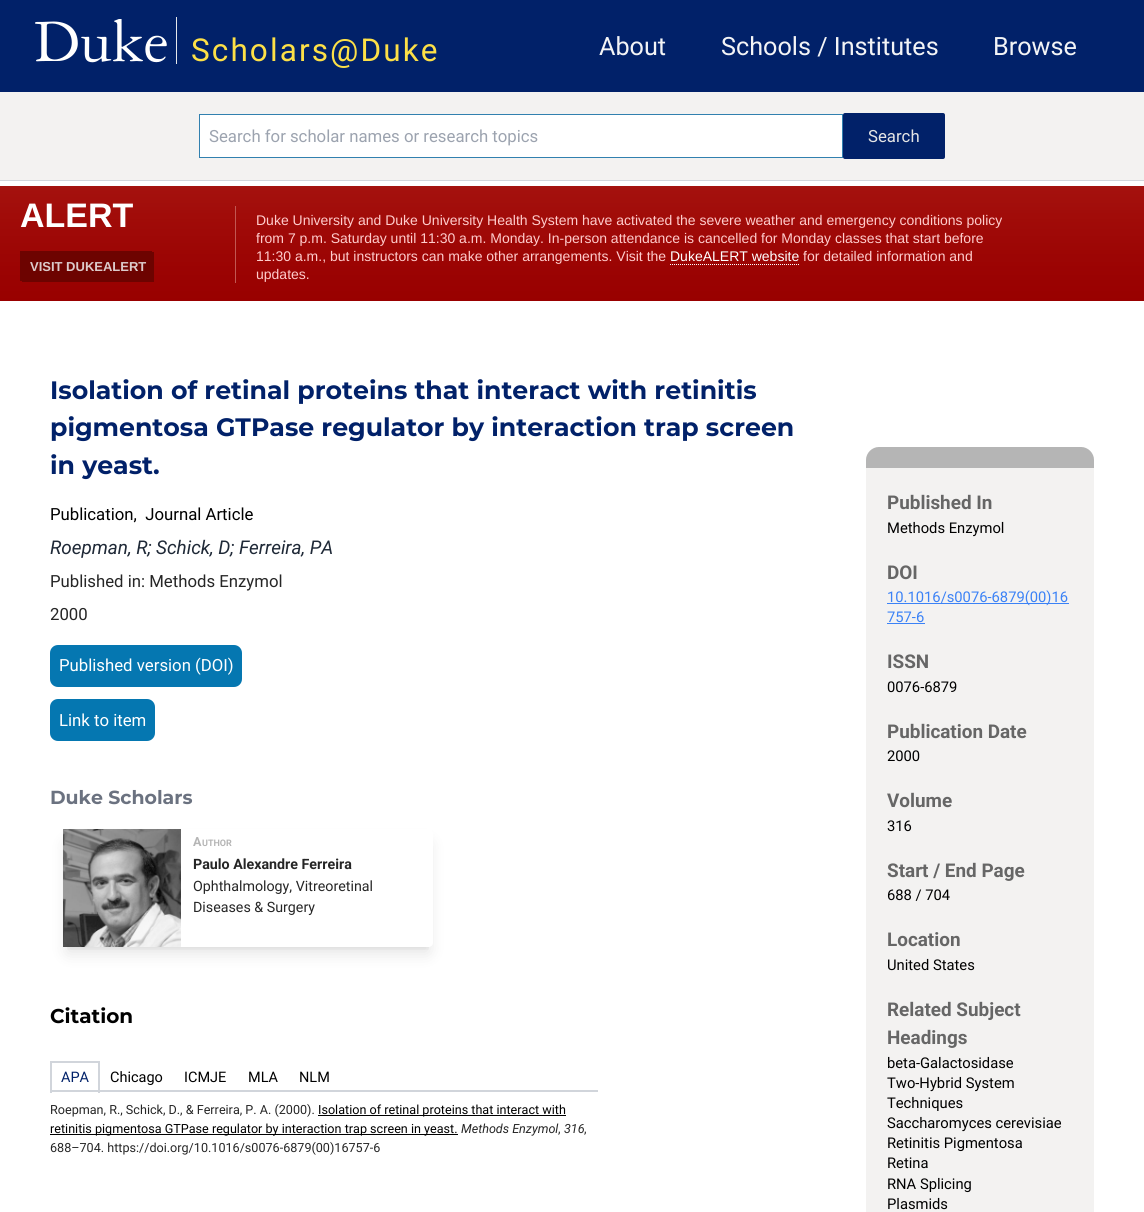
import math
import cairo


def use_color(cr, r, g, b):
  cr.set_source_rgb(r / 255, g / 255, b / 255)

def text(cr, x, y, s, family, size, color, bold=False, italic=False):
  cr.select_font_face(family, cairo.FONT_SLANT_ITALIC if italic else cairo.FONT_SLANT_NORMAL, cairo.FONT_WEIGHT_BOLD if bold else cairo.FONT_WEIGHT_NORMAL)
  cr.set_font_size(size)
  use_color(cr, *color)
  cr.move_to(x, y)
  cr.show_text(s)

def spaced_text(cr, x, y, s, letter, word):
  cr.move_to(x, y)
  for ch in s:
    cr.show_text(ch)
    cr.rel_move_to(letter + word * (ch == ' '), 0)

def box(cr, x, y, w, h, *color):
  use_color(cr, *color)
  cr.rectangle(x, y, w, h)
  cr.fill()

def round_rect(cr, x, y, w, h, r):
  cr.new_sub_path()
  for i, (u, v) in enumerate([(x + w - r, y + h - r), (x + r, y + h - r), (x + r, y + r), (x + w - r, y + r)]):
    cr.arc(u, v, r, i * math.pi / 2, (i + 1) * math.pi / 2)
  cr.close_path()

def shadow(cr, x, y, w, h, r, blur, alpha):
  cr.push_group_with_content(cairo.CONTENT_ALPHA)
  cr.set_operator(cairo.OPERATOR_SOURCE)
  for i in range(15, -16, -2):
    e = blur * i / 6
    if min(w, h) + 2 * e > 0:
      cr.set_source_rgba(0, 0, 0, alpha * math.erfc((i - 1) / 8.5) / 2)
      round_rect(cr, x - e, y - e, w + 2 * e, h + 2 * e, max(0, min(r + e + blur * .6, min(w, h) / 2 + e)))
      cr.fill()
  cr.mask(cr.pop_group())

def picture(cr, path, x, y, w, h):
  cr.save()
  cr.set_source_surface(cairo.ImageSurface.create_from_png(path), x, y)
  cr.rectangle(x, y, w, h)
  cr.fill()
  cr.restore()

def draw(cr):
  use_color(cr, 255, 255, 255)
  cr.paint()
  box(cr, 0, 0, 1144, 92, 1, 33, 105)
  picture(cr, "img_01.png", 35, 19, 132, 44)
  box(cr, 176, 17, 1, 47, 229, 231, 235)
  box(cr, 0, 180, 1144, 1, 209, 213, 219)
  box(cr, 0, 92, 1144, 88, 243, 242, 241)
  use_color(cr, 255, 255, 255)
  cr.rectangle(199.5, 114.5, 643, 43)
  cr.fill_preserve()
  use_color(cr, 49, 128, 175)
  cr.set_line_width(1)
  cr.stroke()
  use_color(cr, 1, 33, 105)
  round_rect(cr, 843, 113, 102, 46, 2)
  cr.fill()
  picture(cr, "img_02.png", 0, 186, 1144, 115)
  box(cr, 20, 251, 132, 30, 109, 3, 0)
  box(cr, 22, 252, 132, 30, 109, 3, 0)
  box(cr, 235, 206, 1, 77, 193, 87, 82)
  cr.new_path()
  cr.move_to(670, 264.5)
  cr.line_to(799, 264.5)
  use_color(cr, 255, 255, 255)
  cr.set_dash([1, 1])
  cr.stroke()
  use_color(cr, 5, 119, 177)
  round_rect(cr, 50, 645, 192, 42, 8)
  cr.fill()
  round_rect(cr, 50, 699, 105, 42, 8)
  cr.fill()
  cr.save()
  cr.rectangle(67, 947, 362, 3)
  cr.clip()
  use_color(cr, 0, 0, 0)
  shadow(cr, 67, 837, 362, 110, 1, 3, 0.1)
  cr.restore()
  cr.save()
  cr.set_fill_rule(cairo.FILL_RULE_EVEN_ODD)
  cr.new_path()
  cr.move_to(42, 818)
  cr.line_to(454, 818)
  cr.line_to(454, 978)
  cr.line_to(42, 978)
  cr.close_path()
  cr.move_to(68, 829)
  cr.line_to(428, 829)
  cr.curve_to(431, 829, 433, 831, 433, 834)
  cr.line_to(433, 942)
  cr.curve_to(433, 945, 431, 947, 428, 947)
  cr.line_to(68, 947)
  cr.curve_to(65, 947, 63, 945, 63, 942)
  cr.line_to(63, 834)
  cr.curve_to(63, 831, 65, 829, 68, 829)
  cr.close_path()
  cr.clip()
  use_color(cr, 0, 0, 0)
  shadow(cr, 66, 842, 364, 112, 2, 7.5, 0.1)
  cr.restore()
  picture(cr, "img_03.png", 63, 829, 118, 118)
  box(cr, 50, 1061, 50, 2, 209, 213, 219)
  box(cr, 98, 1061, 2, 32, 209, 213, 219)
  box(cr, 50, 1061, 2, 32, 209, 213, 219)
  box(cr, 50, 1090, 548, 2, 209, 213, 219)
  box(cr, 318, 1115, 248, 1, 0, 0, 0)
  box(cr, 50, 1134, 408, 1, 0, 0, 0)
  use_color(cr, 243, 242, 241)
  round_rect(cr, 866, 447, 228, 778, 13)
  cr.fill()
  use_color(cr, 181, 181, 181)
  cr.new_path()
  cr.move_to(879, 447)
  cr.line_to(1081, 447)
  cr.curve_to(1088, 447, 1094, 453, 1094, 460)
  cr.line_to(1094, 468)
  cr.line_to(866, 468)
  cr.line_to(866, 460)
  cr.curve_to(866, 453, 872, 447, 879, 447)
  cr.close_path()
  cr.fill()
  box(cr, 887, 603, 182, 1, 59, 130, 246)
  box(cr, 887, 623, 38, 1, 59, 130, 246)
  cr.select_font_face("Roboto")
  cr.set_font_size(31.5)
  use_color(cr, 253, 224, 71)
  spaced_text(cr, 191, 61, "Scholars@Duke", 2.1, 0)
  text(cr, 599, 55, "About", "Roboto", 25.2, (243, 244, 246))
  text(cr, 721, 55, "Schools / Institutes", "Roboto", 25.2, (243, 244, 246))
  text(cr, 993, 55, "Browse", "Roboto", 25.2, (243, 244, 246))
  text(cr, 209, 142, "Search for scholar names or research topics", "Roboto", 16.75, (156, 163, 175))
  text(cr, 868, 142, "Search", "Roboto", 16.75, (229, 229, 229))
  text(cr, 20, 227, "ALERT", "Liberation Sans", 34, (255, 255, 255), bold=True)
  text(cr, 30, 271, "VISIT DUKEALERT", "Liberation Sans", 13, (220, 203, 203), bold=True)
  text(cr, 256, 225, "Duke University and Duke University Health System have activated the severe weather and emergency conditions policy", "Liberation Sans", 14, (255, 204, 204))
  text(cr, 256, 243, "from 7 p.m. Saturday until 11:30 a.m. Monday. In-person attendance is cancelled for Monday classes that start before", "Liberation Sans", 14, (255, 204, 204))
  text(cr, 256, 261, "11:30 a.m., but instructors can make other arrangements. Visit the", "Liberation Sans", 14, (255, 204, 204))
  text(cr, 670, 261, "DukeALERT website", "Liberation Sans", 14, (255, 255, 255))
  text(cr, 803, 261, "for detailed information and", "Liberation Sans", 14, (255, 204, 204))
  text(cr, 256, 279, "updates.", "Liberation Sans", 14, (255, 204, 204))
  text(cr, 50, 399, "Isolation of retinal proteins that interact with retinitis", "Montserrat", 25.2, (1, 33, 105), bold=True)
  text(cr, 50, 436, "pigmentosa GTPase regulator by interaction trap screen", "Montserrat", 25.2, (1, 33, 105), bold=True)
  text(cr, 50, 474, "in yeast.", "Montserrat", 25.2, (1, 33, 105), bold=True)
  text(cr, 50, 520, "Publication,  Journal Article", "Roboto", 16.75, (0, 0, 0))
  text(cr, 50, 554, "Roepman, R; Schick, D; Ferreira, PA", "Roboto", 18.9, (31, 41, 55), italic=True)
  text(cr, 50, 587, "Published in: Methods Enzymol", "Roboto", 16.75, (38, 38, 38))
  text(cr, 50, 620, "2000", "Roboto", 16.75, (38, 38, 38))
  text(cr, 59, 671, "Published version (DOI)", "Roboto", 16.75, (255, 255, 255))
  text(cr, 59, 726, "Link to item", "Roboto", 16.75, (255, 255, 255))
  text(cr, 50, 804, "Duke Scholars", "Montserrat", 18.9, (107, 114, 128), bold=True)
  text(cr, 193, 846, "A", "Roboto", 12.6, (181, 181, 181), bold=True)
  text(cr, 202, 846, "UTHOR", "Roboto", 9, (181, 181, 181), bold=True)
  text(cr, 193, 869, "Paulo Alexandre Ferreira", "Roboto", 14.25, (38, 38, 38), bold=True)
  text(cr, 193, 891, "Ophthalmology, Vitreoretinal", "Roboto", 14.25, (38, 38, 38))
  text(cr, 193, 912, "Diseases & Surgery", "Roboto", 14.25, (38, 38, 38))
  text(cr, 50, 1023, "Citation", "Montserrat", 20, (0, 0, 0), bold=True)
  text(cr, 61, 1082, "APA", "Roboto", 14.5, (1, 33, 105))
  text(cr, 110, 1082, "Chicago", "Roboto", 14.5, (0, 0, 0))
  text(cr, 184, 1082, "ICMJE", "Roboto", 14.5, (0, 0, 0))
  text(cr, 248, 1082, "MLA", "Roboto", 14.5, (0, 0, 0))
  text(cr, 299, 1082, "NLM", "Roboto", 14.5, (0, 0, 0))
  text(cr, 50, 1114, "Roepman, R., Schick, D., & Ferreira, P. A. (2000).", "Roboto", 12.6, (38, 38, 38))
  text(cr, 318, 1114, "Isolation of retinal proteins that interact with", "Roboto", 12.6, (0, 0, 0))
  text(cr, 50, 1133, "retinitis pigmentosa GTPase regulator by interaction trap screen in yeast.", "Roboto", 12.6, (0, 0, 0))
  text(cr, 461, 1133, "Methods Enzymol", "Roboto", 12.6, (38, 38, 38), italic=True)
  text(cr, 558, 1133, ",", "Roboto", 12.6, (38, 38, 38))
  text(cr, 564, 1133, "316", "Roboto", 12.6, (38, 38, 38), italic=True)
  text(cr, 584, 1133, ",", "Roboto", 12.6, (38, 38, 38))
  text(cr, 50, 1152, "688–704. https://doi.org/10.1016/s0076-6879(00)16757-6", "Roboto", 12.6, (38, 38, 38))
  text(cr, 887, 509, "Published In", "Roboto", 18.9, (102, 102, 102), bold=True)
  text(cr, 887, 533, "Methods Enzymol", "Roboto", 14.75, (0, 0, 0))
  text(cr, 887, 579, "DOI", "Roboto", 18.9, (102, 102, 102), bold=True)
  text(cr, 887, 602, "10.1016/s0076-6879(00)16", "Roboto", 14.75, (59, 130, 246))
  text(cr, 887, 622, "757-6", "Roboto", 14.75, (59, 130, 246))
  text(cr, 887, 668, "ISSN", "Roboto", 18.9, (102, 102, 102), bold=True)
  text(cr, 887, 692, "0076-6879", "Roboto", 14.75, (0, 0, 0))
  text(cr, 887, 738, "Publication Date", "Roboto", 18.9, (102, 102, 102), bold=True)
  text(cr, 887, 761, "2000", "Roboto", 14.75, (0, 0, 0))
  text(cr, 887, 807, "Volume", "Roboto", 18.9, (102, 102, 102), bold=True)
  text(cr, 887, 831, "316", "Roboto", 14.75, (0, 0, 0))
  text(cr, 887, 877, "Start / End Page", "Roboto", 18.9, (102, 102, 102), bold=True)
  text(cr, 887, 900, "688 / 704", "Roboto", 14.75, (0, 0, 0))
  text(cr, 887, 946, "Location", "Roboto", 18.9, (102, 102, 102), bold=True)
  text(cr, 887, 970, "United States", "Roboto", 14.75, (0, 0, 0))
  text(cr, 887, 1016, "Related Subject", "Roboto", 18.9, (102, 102, 102), bold=True)
  text(cr, 887, 1044, "Headings", "Roboto", 18.9, (102, 102, 102), bold=True)
  text(cr, 887, 1068, "beta-Galactosidase", "Roboto", 14.75, (0, 0, 0))
  text(cr, 887, 1088, "Two-Hybrid System", "Roboto", 14.75, (0, 0, 0))
  text(cr, 887, 1108, "Techniques", "Roboto", 14.75, (0, 0, 0))
  text(cr, 887, 1128, "Saccharomyces cerevisiae", "Roboto", 14.75, (0, 0, 0))
  text(cr, 887, 1148, "Retinitis Pigmentosa", "Roboto", 14.75, (0, 0, 0))
  text(cr, 887, 1168, "Retina", "Roboto", 14.75, (0, 0, 0))
  text(cr, 887, 1189, "RNA Splicing", "Roboto", 14.75, (0, 0, 0))
  text(cr, 887, 1209, "Plasmids", "Roboto", 14.75, (0, 0, 0))


surface = cairo.ImageSurface(cairo.FORMAT_RGB24, 1144, 1212)
cr = cairo.Context(surface)
options = cairo.FontOptions()
options.set_hint_metrics(cairo.HINT_METRICS_OFF)
options.set_hint_style(cairo.HINT_STYLE_NONE)
cr.set_font_options(options)
cr.set_miter_limit(4)
draw(cr)
surface.write_to_png("out.png")
